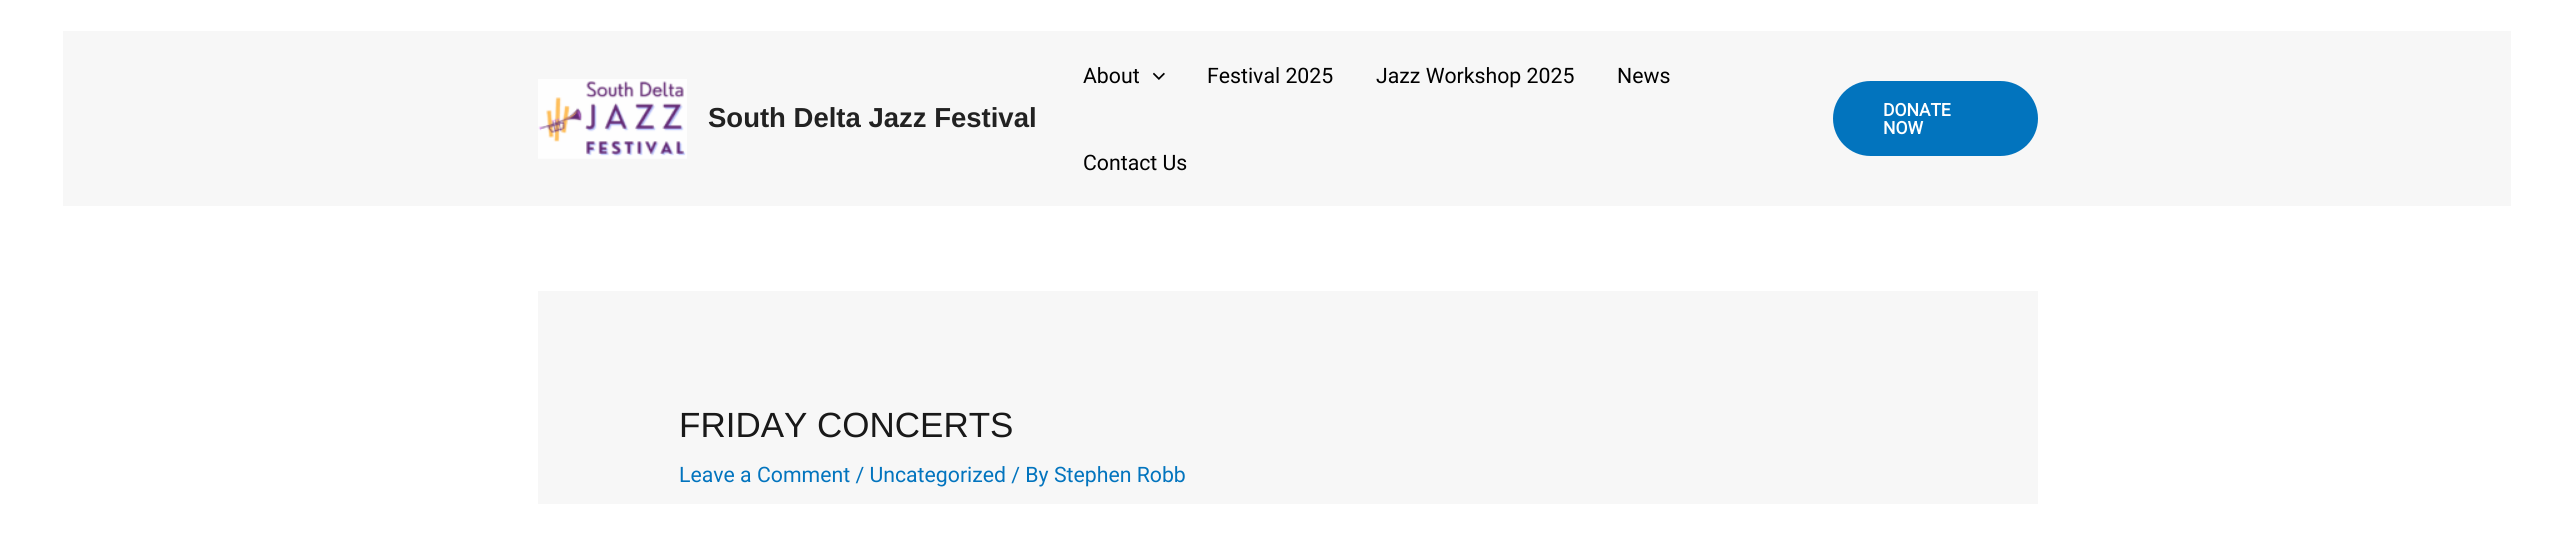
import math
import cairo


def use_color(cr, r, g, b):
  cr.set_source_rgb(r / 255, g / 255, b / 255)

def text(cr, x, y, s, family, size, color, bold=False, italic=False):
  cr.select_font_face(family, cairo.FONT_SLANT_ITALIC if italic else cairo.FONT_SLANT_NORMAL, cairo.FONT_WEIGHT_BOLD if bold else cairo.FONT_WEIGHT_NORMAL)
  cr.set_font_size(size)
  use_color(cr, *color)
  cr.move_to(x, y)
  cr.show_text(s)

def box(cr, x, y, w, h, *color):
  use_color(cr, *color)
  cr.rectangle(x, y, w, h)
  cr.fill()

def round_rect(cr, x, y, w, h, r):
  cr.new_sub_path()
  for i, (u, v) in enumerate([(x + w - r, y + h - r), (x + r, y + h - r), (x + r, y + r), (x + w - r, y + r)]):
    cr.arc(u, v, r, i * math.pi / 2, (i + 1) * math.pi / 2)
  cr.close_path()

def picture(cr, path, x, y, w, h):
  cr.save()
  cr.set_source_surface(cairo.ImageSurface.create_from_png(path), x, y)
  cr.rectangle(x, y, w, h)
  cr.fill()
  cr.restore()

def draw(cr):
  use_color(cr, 255, 255, 255)
  cr.paint()
  box(cr, 63, 31, 2448, 175, 247, 247, 247)
  picture(cr, "img_01.png", 538, 79, 149, 80)
  picture(cr, "img_02.png", 1153, 72, 12, 8)
  use_color(cr, 2, 116, 190)
  round_rect(cr, 1833, 81, 205, 75, 37.5)
  cr.fill()
  box(cr, 538, 291, 1500, 213, 247, 247, 247)
  text(cr, 708, 127, "South Delta Jazz Festival", "Liberation Sans", 27.5, (34, 34, 34), bold=True)
  text(cr, 1083, 83, "About", "Roboto", 21.25, (0, 0, 0))
  text(cr, 1207, 83, "Festival 2025", "Roboto", 21.25, (0, 0, 0))
  text(cr, 1376, 83, "Jazz Workshop 2025", "Roboto", 21.25, (0, 0, 0))
  text(cr, 1617, 83, "News", "Roboto", 21.25, (0, 0, 0))
  text(cr, 1083, 170, "Contact Us", "Roboto", 21.25, (0, 0, 0))
  text(cr, 1883, 116, "DONATE", "Roboto", 17.5, (255, 255, 255), bold=True)
  text(cr, 1883, 134, "NOW", "Roboto", 17.5, (255, 255, 255), bold=True)
  text(cr, 679, 437, "FRIDAY CONCERTS", "Liberation Sans", 35, (25, 25, 25))
  text(cr, 679, 482, "Leave a Comment / Uncategorized / By Stephen Robb", "Roboto", 21.25, (2, 116, 190))


surface = cairo.ImageSurface(cairo.FORMAT_RGB24, 2573, 535)
cr = cairo.Context(surface)
options = cairo.FontOptions()
options.set_hint_metrics(cairo.HINT_METRICS_OFF)
options.set_hint_style(cairo.HINT_STYLE_NONE)
cr.set_font_options(options)
cr.set_miter_limit(4)
draw(cr)
surface.write_to_png("out.png")
